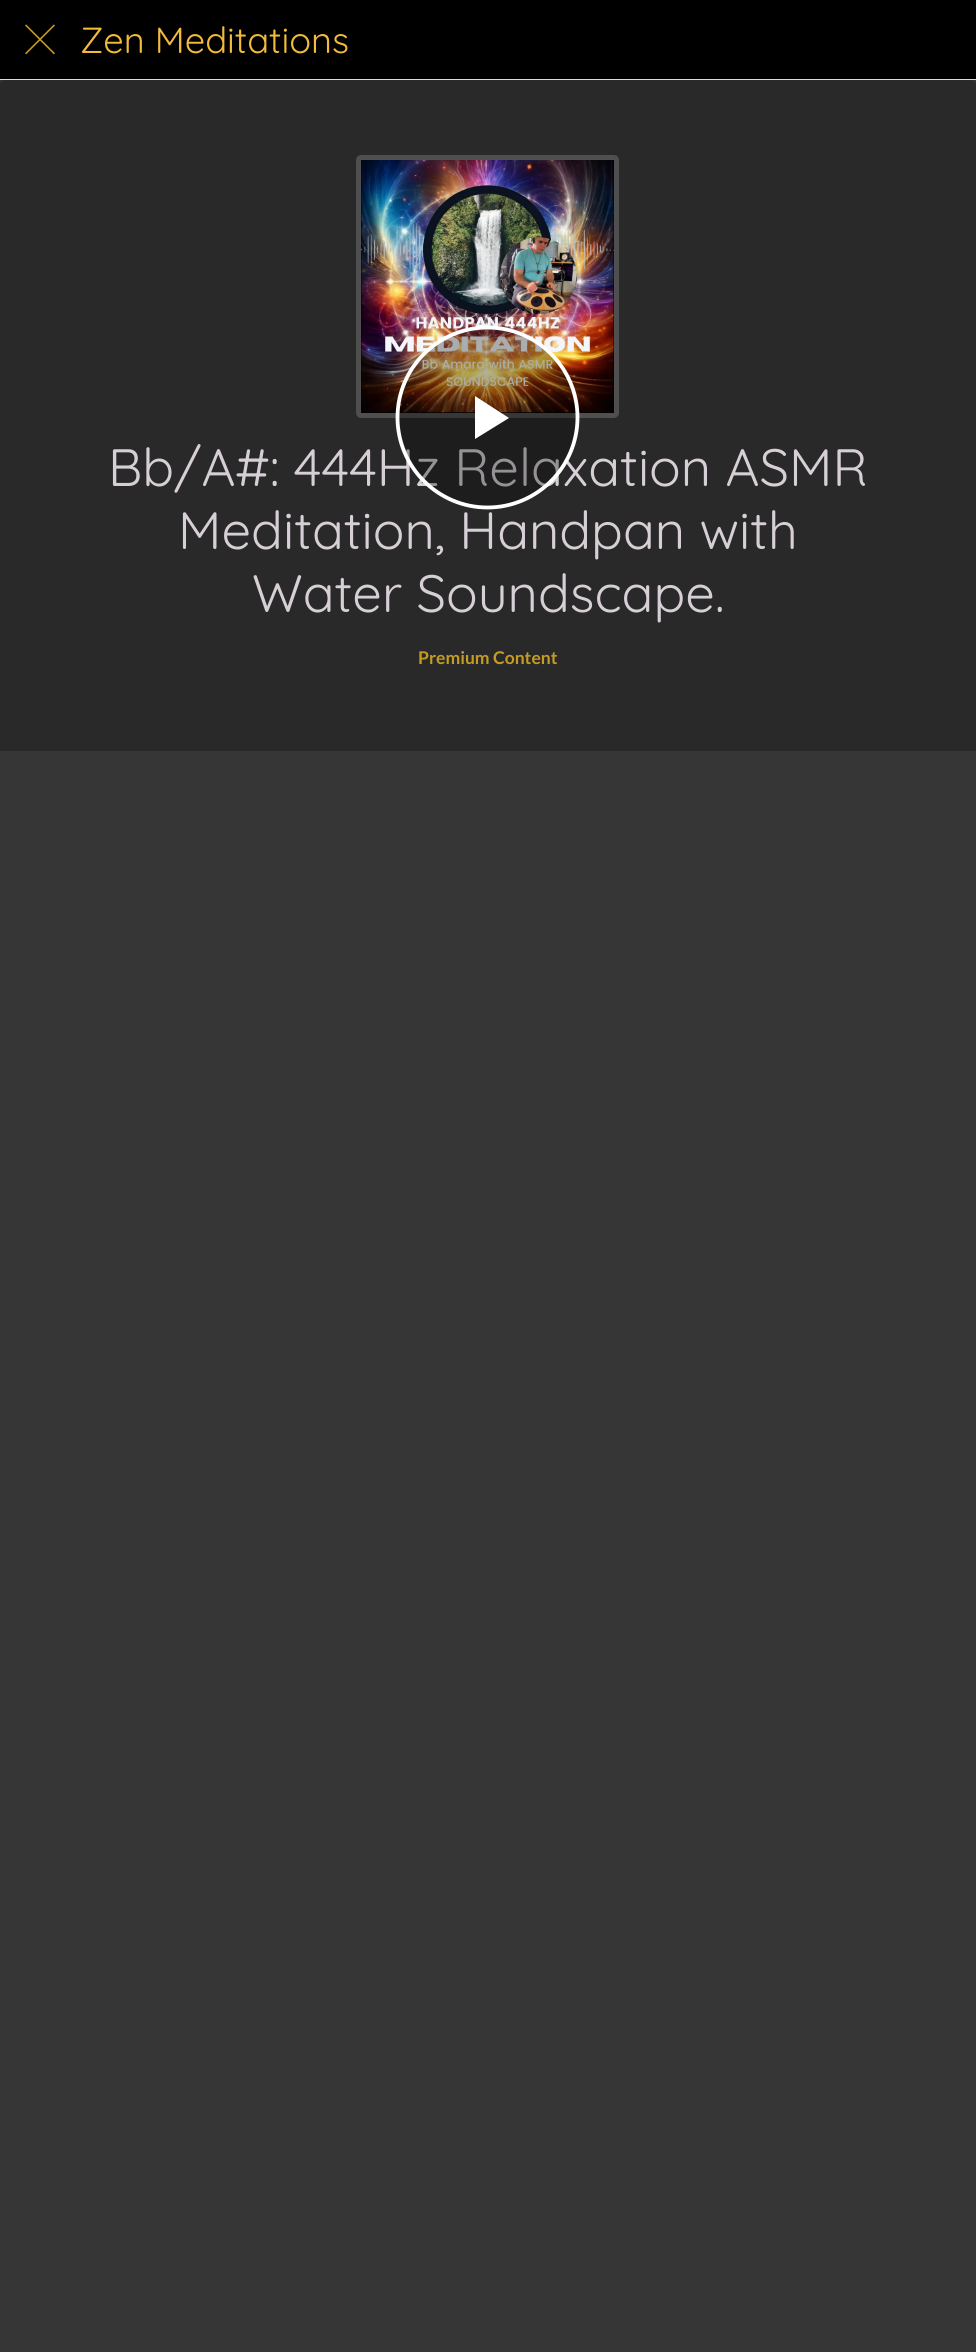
import math
import cairo


def use_color(cr, r, g, b):
  cr.set_source_rgb(r / 255, g / 255, b / 255)

def text(cr, x, y, s, family, size, color, bold=False, italic=False):
  cr.select_font_face(family, cairo.FONT_SLANT_ITALIC if italic else cairo.FONT_SLANT_NORMAL, cairo.FONT_WEIGHT_BOLD if bold else cairo.FONT_WEIGHT_NORMAL)
  cr.set_font_size(size)
  use_color(cr, *color)
  cr.move_to(x, y)
  cr.show_text(s)

def box(cr, x, y, w, h, *color):
  use_color(cr, *color)
  cr.rectangle(x, y, w, h)
  cr.fill()

def round_rect(cr, x, y, w, h, r):
  cr.new_sub_path()
  for i, (u, v) in enumerate([(x + w - r, y + h - r), (x + r, y + h - r), (x + r, y + r), (x + w - r, y + r)]):
    cr.arc(u, v, r, i * math.pi / 2, (i + 1) * math.pi / 2)
  cr.close_path()

def picture(cr, path, x, y, w, h):
  cr.save()
  cr.set_source_surface(cairo.ImageSurface.create_from_png(path), x, y)
  cr.rectangle(x, y, w, h)
  cr.fill()
  cr.restore()

def draw(cr):
  use_color(cr, 54, 54, 54)
  cr.paint()
  box(cr, 0, 0, 976, 79, 0, 0, 0)
  box(cr, 0, 79, 976, 1, 221, 221, 221)
  picture(cr, "img_01.png", 25, 24, 30, 31)
  use_color(cr, 41, 41, 41)
  cr.new_path()
  cr.move_to(5, 80)
  cr.line_to(971, 80)
  cr.curve_to(974, 80, 976, 82, 976, 85)
  cr.line_to(976, 751)
  cr.line_to(0, 751)
  cr.line_to(0, 85)
  cr.curve_to(0, 82, 2, 80, 5, 80)
  cr.close_path()
  cr.fill()
  box(cr, 361, 160, 253, 253, 0, 0, 0)
  picture(cr, "img_02.png", 361, 160, 253, 253)
  round_rect(cr, 358.5, 157.5, 258, 258, 2.5)
  use_color(cr, 79, 79, 79)
  cr.set_line_width(5)
  cr.stroke()
  text(cr, 80, 53, "Zen Meditations", "Quicksand Light", 36.25, (242, 187, 58))
  text(cr, 108, 486, "Bb/A#: 444Hz Relaxation ASMR", "Quicksand Light", 52.5, (214, 207, 214))
  cr.set_source_rgba(0, 0, 0, 0.3)
  cr.new_path()
  cr.arc(487.5, 417.5, 90, 0, 2 * math.pi)
  cr.fill()
  cr.new_path()
  cr.move_to(487.5, 327.5)
  cr.curve_to(537, 327.5, 577.5, 368, 577.5, 417.5)
  cr.curve_to(577.5, 467, 537, 507.5, 487.5, 507.5)
  cr.curve_to(438, 507.5, 397.5, 467, 397.5, 417.5)
  cr.curve_to(397.5, 368, 438, 327.5, 487.5, 327.5)
  use_color(cr, 255, 255, 255)
  cr.set_line_width(3.8)
  cr.stroke()
  cr.new_path()
  cr.move_to(475, 396)
  cr.line_to(475, 439)
  cr.line_to(509, 418)
  cr.close_path()
  cr.fill()
  text(cr, 178, 549, "Meditation, Handpan with", "Quicksand Light", 52.5, (214, 207, 214))
  text(cr, 252, 612, "Water Soundscape.", "Quicksand Light", 52.5, (214, 207, 214))
  text(cr, 418, 664, "Premium Content", "Lato", 17.5, (196, 156, 37), bold=True)


surface = cairo.ImageSurface(cairo.FORMAT_RGB24, 976, 2352)
cr = cairo.Context(surface)
options = cairo.FontOptions()
options.set_hint_metrics(cairo.HINT_METRICS_OFF)
options.set_hint_style(cairo.HINT_STYLE_NONE)
cr.set_font_options(options)
cr.set_miter_limit(4)
draw(cr)
surface.write_to_png("out.png")
